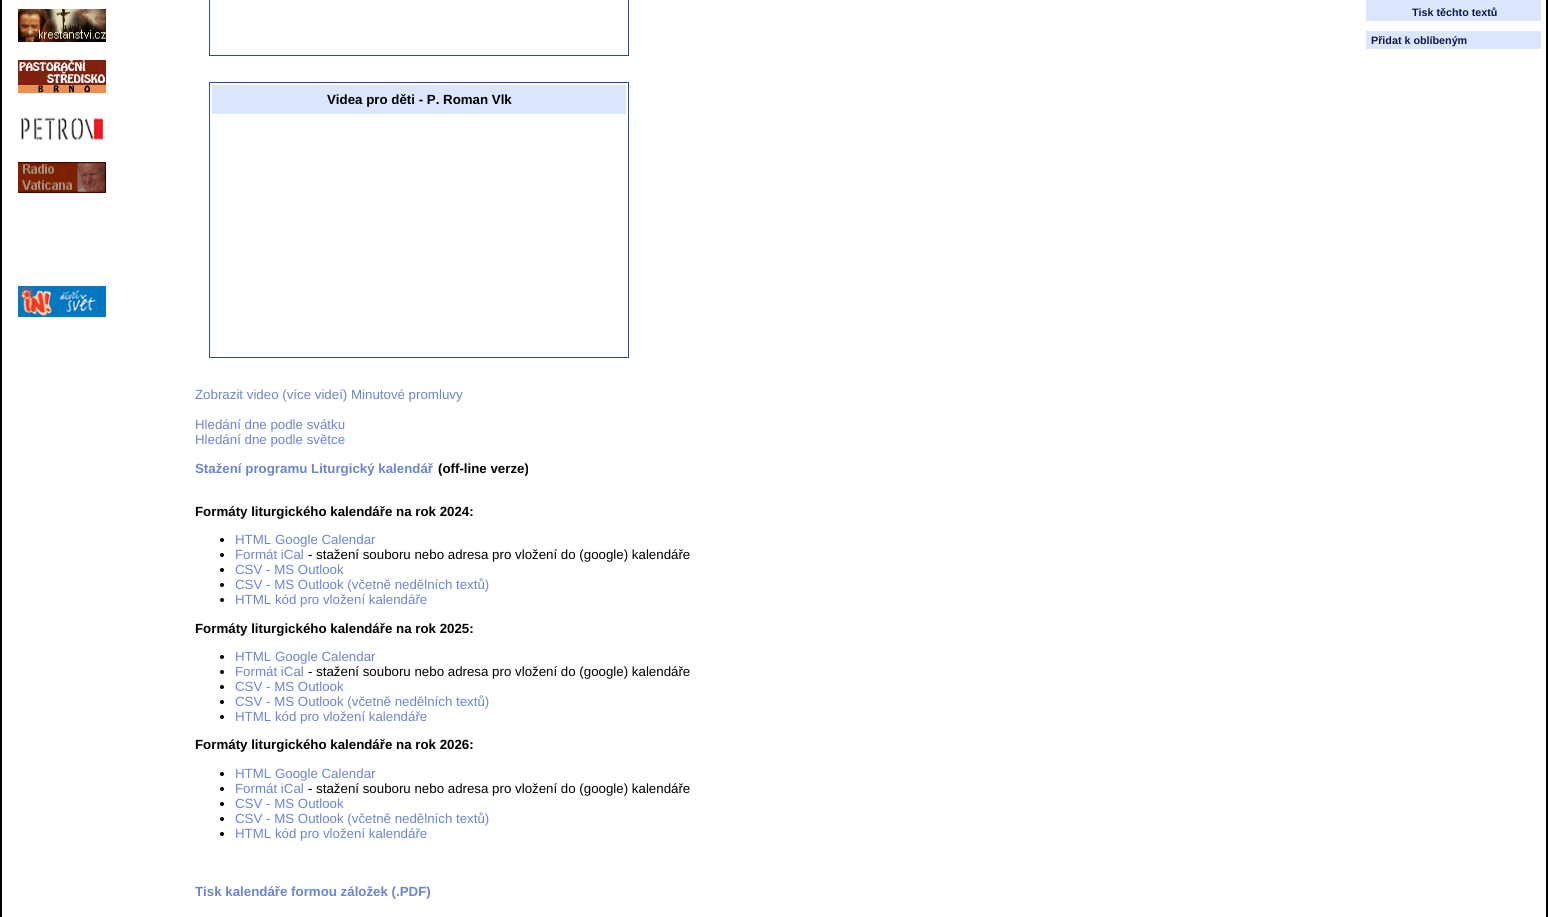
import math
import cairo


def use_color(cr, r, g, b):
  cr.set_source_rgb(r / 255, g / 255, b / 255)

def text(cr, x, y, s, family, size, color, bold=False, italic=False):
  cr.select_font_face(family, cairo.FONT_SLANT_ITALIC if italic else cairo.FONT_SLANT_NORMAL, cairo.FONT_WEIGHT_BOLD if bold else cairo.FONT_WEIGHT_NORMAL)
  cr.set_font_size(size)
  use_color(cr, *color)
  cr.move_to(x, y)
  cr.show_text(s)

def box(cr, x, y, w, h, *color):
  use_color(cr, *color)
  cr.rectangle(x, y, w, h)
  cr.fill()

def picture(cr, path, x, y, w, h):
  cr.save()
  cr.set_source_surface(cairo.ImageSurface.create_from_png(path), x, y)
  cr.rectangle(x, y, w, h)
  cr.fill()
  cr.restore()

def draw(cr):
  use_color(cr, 255, 255, 255)
  cr.paint()
  picture(cr, "img_01.png", 18, 9, 88, 33)
  picture(cr, "img_02.png", 18, 60, 88, 33)
  picture(cr, "img_03.png", 20, 117, 83, 24)
  picture(cr, "img_04.png", 18, 162, 88, 31)
  picture(cr, "img_05.png", 18, 286, 88, 31)
  box(cr, 1546, 0, 2, 917, 0, 0, 0)
  box(cr, 0, 0, 2, 917, 0, 0, 0)
  cr.rectangle(209.5, -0.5, 419, 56)
  use_color(cr, 50, 74, 148)
  cr.set_line_width(1)
  cr.stroke()
  cr.rectangle(209.5, 82.5, 419, 275)
  cr.stroke()
  box(cr, 212, 85, 414, 29, 221, 230, 255)
  use_color(cr, 0, 0, 0)
  cr.arc(222, 540, 2, 0, 2 * math.pi)
  cr.fill()
  cr.arc(222, 555, 2, 0, 2 * math.pi)
  cr.fill()
  cr.arc(222, 570, 2, 0, 2 * math.pi)
  cr.fill()
  cr.arc(222, 585, 2, 0, 2 * math.pi)
  cr.fill()
  cr.arc(222, 600, 2, 0, 2 * math.pi)
  cr.fill()
  cr.arc(222, 657, 2, 0, 2 * math.pi)
  cr.fill()
  cr.arc(222, 672, 2, 0, 2 * math.pi)
  cr.fill()
  cr.arc(222, 687, 2, 0, 2 * math.pi)
  cr.fill()
  cr.arc(222, 702, 2, 0, 2 * math.pi)
  cr.fill()
  cr.arc(222, 717, 2, 0, 2 * math.pi)
  cr.fill()
  cr.arc(222, 774, 2, 0, 2 * math.pi)
  cr.fill()
  cr.arc(222, 789, 2, 0, 2 * math.pi)
  cr.fill()
  cr.arc(222, 804, 2, 0, 2 * math.pi)
  cr.fill()
  cr.arc(222, 819, 2, 0, 2 * math.pi)
  cr.fill()
  cr.arc(222, 834, 2, 0, 2 * math.pi)
  cr.fill()
  box(cr, 1366, 0, 175, 21, 221, 230, 255)
  box(cr, 1366, 31, 175, 18, 221, 230, 255)
  text(cr, 327, 104, "Videa pro děti - P. Roman Vlk", "Liberation Sans", 13.3, (0, 0, 0), bold=True)
  text(cr, 195, 399, "Zobrazit video (více videí) Minutové promluvy", "Liberation Sans", 13.3, (108, 133, 206))
  text(cr, 195, 429, "Hledání dne podle svátku", "Liberation Sans", 13.3, (108, 133, 206))
  text(cr, 195, 444, "Hledání dne podle světce", "Liberation Sans", 13.3, (108, 133, 206))
  text(cr, 195, 473, "Stažení programu Liturgický kalendář", "Liberation Sans", 13.3, (108, 133, 206), bold=True)
  text(cr, 438, 473, "(off-line verze)", "Liberation Sans", 13.3, (0, 0, 0), bold=True)
  text(cr, 195, 516, "Formáty liturgického kalendáře na rok 2024:", "Liberation Sans", 13.3, (0, 0, 0), bold=True)
  text(cr, 235, 544, "HTML Google Calendar", "Liberation Sans", 13.3, (108, 133, 206))
  text(cr, 235, 559, "Formát iCal", "Liberation Sans", 13.3, (108, 133, 206))
  text(cr, 308, 559, "- stažení souboru nebo adresa pro vložení do (google) kalendáře", "Liberation Sans", 13.3, (0, 0, 0))
  text(cr, 235, 574, "CSV - MS Outlook", "Liberation Sans", 13.3, (108, 133, 206))
  text(cr, 235, 589, "CSV - MS Outlook (včetně nedělních textů)", "Liberation Sans", 13.3, (108, 133, 206))
  text(cr, 235, 604, "HTML kód pro vložení kalendáře", "Liberation Sans", 13.3, (108, 133, 206))
  text(cr, 195, 633, "Formáty liturgického kalendáře na rok 2025:", "Liberation Sans", 13.3, (0, 0, 0), bold=True)
  text(cr, 235, 661, "HTML Google Calendar", "Liberation Sans", 13.3, (108, 133, 206))
  text(cr, 235, 676, "Formát iCal", "Liberation Sans", 13.3, (108, 133, 206))
  text(cr, 308, 676, "- stažení souboru nebo adresa pro vložení do (google) kalendáře", "Liberation Sans", 13.3, (0, 0, 0))
  text(cr, 235, 691, "CSV - MS Outlook", "Liberation Sans", 13.3, (108, 133, 206))
  text(cr, 235, 706, "CSV - MS Outlook (včetně nedělních textů)", "Liberation Sans", 13.3, (108, 133, 206))
  text(cr, 235, 721, "HTML kód pro vložení kalendáře", "Liberation Sans", 13.3, (108, 133, 206))
  text(cr, 195, 749, "Formáty liturgického kalendáře na rok 2026:", "Liberation Sans", 13.3, (0, 0, 0), bold=True)
  text(cr, 235, 778, "HTML Google Calendar", "Liberation Sans", 13.3, (108, 133, 206))
  text(cr, 235, 793, "Formát iCal", "Liberation Sans", 13.3, (108, 133, 206))
  text(cr, 308, 793, "- stažení souboru nebo adresa pro vložení do (google) kalendáře", "Liberation Sans", 13.3, (0, 0, 0))
  text(cr, 235, 808, "CSV - MS Outlook", "Liberation Sans", 13.3, (108, 133, 206))
  text(cr, 235, 823, "CSV - MS Outlook (včetně nedělních textů)", "Liberation Sans", 13.3, (108, 133, 206))
  text(cr, 235, 838, "HTML kód pro vložení kalendáře", "Liberation Sans", 13.3, (108, 133, 206))
  text(cr, 195, 896, "Tisk kalendáře formou záložek (.PDF)", "Liberation Sans", 13.3, (108, 133, 206), bold=True)
  text(cr, 1412, 16, "Tisk těchto textů", "Liberation Sans", 10.75, (10, 25, 72), bold=True)
  text(cr, 1371, 44, "Přidat k oblíbeným", "Liberation Sans", 10.75, (10, 25, 72), bold=True)


surface = cairo.ImageSurface(cairo.FORMAT_RGB24, 1548, 917)
cr = cairo.Context(surface)
options = cairo.FontOptions()
options.set_hint_metrics(cairo.HINT_METRICS_OFF)
options.set_hint_style(cairo.HINT_STYLE_NONE)
cr.set_font_options(options)
cr.set_miter_limit(4)
draw(cr)
surface.write_to_png("out.png")
